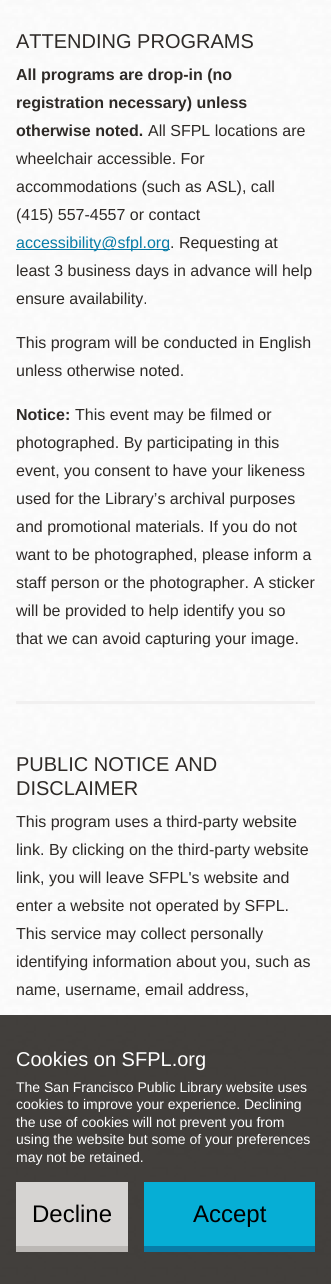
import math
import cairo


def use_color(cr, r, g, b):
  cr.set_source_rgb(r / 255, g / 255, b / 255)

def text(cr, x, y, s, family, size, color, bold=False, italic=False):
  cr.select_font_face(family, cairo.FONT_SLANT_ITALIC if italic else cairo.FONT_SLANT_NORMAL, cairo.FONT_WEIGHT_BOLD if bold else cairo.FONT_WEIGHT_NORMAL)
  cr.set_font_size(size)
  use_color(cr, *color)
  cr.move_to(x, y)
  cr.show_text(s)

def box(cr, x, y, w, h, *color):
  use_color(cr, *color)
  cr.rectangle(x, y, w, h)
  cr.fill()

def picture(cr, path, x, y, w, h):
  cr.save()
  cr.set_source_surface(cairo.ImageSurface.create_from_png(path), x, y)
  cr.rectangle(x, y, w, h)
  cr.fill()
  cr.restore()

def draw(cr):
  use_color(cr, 255, 255, 255)
  cr.paint()
  picture(cr, "img_01.png", 0, 0, 331, 1284)
  box(cr, 16, 249, 154, 1, 8, 124, 167)
  box(cr, 16, 701, 299, 3, 241, 240, 240)
  cr.set_source_rgba(0.18, 0.165, 0.153, 0.9)
  cr.rectangle(0, 1015, 331, 269)
  cr.fill()
  box(cr, 16, 1246, 112, 6, 187, 184, 181)
  box(cr, 16, 1182, 112, 64, 214, 212, 210)
  box(cr, 144, 1246, 171, 6, 8, 124, 167)
  box(cr, 144, 1182, 171, 64, 6, 174, 213)
  text(cr, 16, 48, "ATTENDING PROGRAMS", "Liberation Sans", 20, (46, 42, 39))
  text(cr, 16, 80, "All programs are drop-in (no", "Liberation Sans", 16, (46, 42, 39), bold=True)
  text(cr, 16, 108, "registration necessary) unless", "Liberation Sans", 16, (46, 42, 39), bold=True)
  text(cr, 16, 136, "otherwise noted.", "Liberation Sans", 16, (46, 42, 39), bold=True)
  text(cr, 148, 136, "All SFPL locations are", "Liberation Sans", 16, (46, 42, 39))
  text(cr, 16, 164, "wheelchair accessible. For", "Liberation Sans", 16, (46, 42, 39))
  text(cr, 16, 192, "accommodations (such as ASL), call", "Liberation Sans", 16, (46, 42, 39))
  text(cr, 16, 220, "(415) 557-4557 or contact", "Liberation Sans", 16, (46, 42, 39))
  text(cr, 16, 248, "accessibility@sfpl.org", "Liberation Sans", 16, (8, 124, 167))
  text(cr, 170, 248, ". Requesting at", "Liberation Sans", 16, (46, 42, 39))
  text(cr, 16, 276, "least 3 business days in advance will help", "Liberation Sans", 16, (46, 42, 39))
  text(cr, 16, 304, "ensure availability.", "Liberation Sans", 16, (46, 42, 39))
  text(cr, 16, 348, "This program will be conducted in English", "Liberation Sans", 16, (46, 42, 39))
  text(cr, 16, 376, "unless otherwise noted.", "Liberation Sans", 16, (46, 42, 39))
  text(cr, 16, 420, "Notice:", "Liberation Sans", 16, (46, 42, 39), bold=True)
  text(cr, 75, 420, "This event may be filmed or", "Liberation Sans", 16, (46, 42, 39))
  text(cr, 16, 448, "photographed. By participating in this", "Liberation Sans", 16, (46, 42, 39))
  text(cr, 16, 476, "event, you consent to have your likeness", "Liberation Sans", 16, (46, 42, 39))
  text(cr, 16, 504, "used for the Library’s archival purposes", "Liberation Sans", 16, (46, 42, 39))
  text(cr, 16, 532, "and promotional materials. If you do not", "Liberation Sans", 16, (46, 42, 39))
  text(cr, 16, 560, "want to be photographed, please inform a", "Liberation Sans", 16, (46, 42, 39))
  text(cr, 16, 588, "staff person or the photographer. A sticker", "Liberation Sans", 16, (46, 42, 39))
  text(cr, 16, 616, "will be provided to help identify you so", "Liberation Sans", 16, (46, 42, 39))
  text(cr, 16, 644, "that we can avoid capturing your image.", "Liberation Sans", 16, (46, 42, 39))
  text(cr, 16, 771, "PUBLIC NOTICE AND", "Liberation Sans", 20, (46, 42, 39))
  text(cr, 16, 795, "DISCLAIMER", "Liberation Sans", 20, (46, 42, 39))
  text(cr, 16, 827, "This program uses a third-party website", "Liberation Sans", 16, (46, 42, 39))
  text(cr, 16, 855, "link. By clicking on the third-party website", "Liberation Sans", 16, (46, 42, 39))
  text(cr, 16, 883, "link, you will leave SFPL's website and", "Liberation Sans", 16, (46, 42, 39))
  text(cr, 16, 911, "enter a website not operated by SFPL.", "Liberation Sans", 16, (46, 42, 39))
  text(cr, 16, 939, "This service may collect personally", "Liberation Sans", 16, (46, 42, 39))
  text(cr, 16, 967, "identifying information about you, such as", "Liberation Sans", 16, (46, 42, 39))
  text(cr, 16, 995, "name, username, email address,", "Liberation Sans", 16, (46, 42, 39))
  text(cr, 16, 1066, "Cookies on SFPL.org", "Liberation Sans", 20, (255, 255, 255))
  text(cr, 16, 1092, "The San Francisco Public Library website uses", "Liberation Sans", 14, (255, 255, 255))
  text(cr, 16, 1109, "cookies to improve your experience. Declining", "Liberation Sans", 14, (255, 255, 255))
  text(cr, 16, 1127, "the use of cookies will not prevent you from", "Liberation Sans", 14, (255, 255, 255))
  text(cr, 16, 1144, "using the website but some of your preferences", "Liberation Sans", 14, (255, 255, 255))
  text(cr, 16, 1162, "may not be retained.", "Liberation Sans", 14, (255, 255, 255))
  text(cr, 32, 1222, "Decline", "Liberation Sans", 24, (0, 0, 0))
  text(cr, 193, 1222, "Accept", "Liberation Sans", 24, (0, 0, 0))


surface = cairo.ImageSurface(cairo.FORMAT_RGB24, 331, 1284)
cr = cairo.Context(surface)
options = cairo.FontOptions()
options.set_hint_metrics(cairo.HINT_METRICS_OFF)
options.set_hint_style(cairo.HINT_STYLE_NONE)
cr.set_font_options(options)
cr.set_miter_limit(4)
draw(cr)
surface.write_to_png("out.png")
